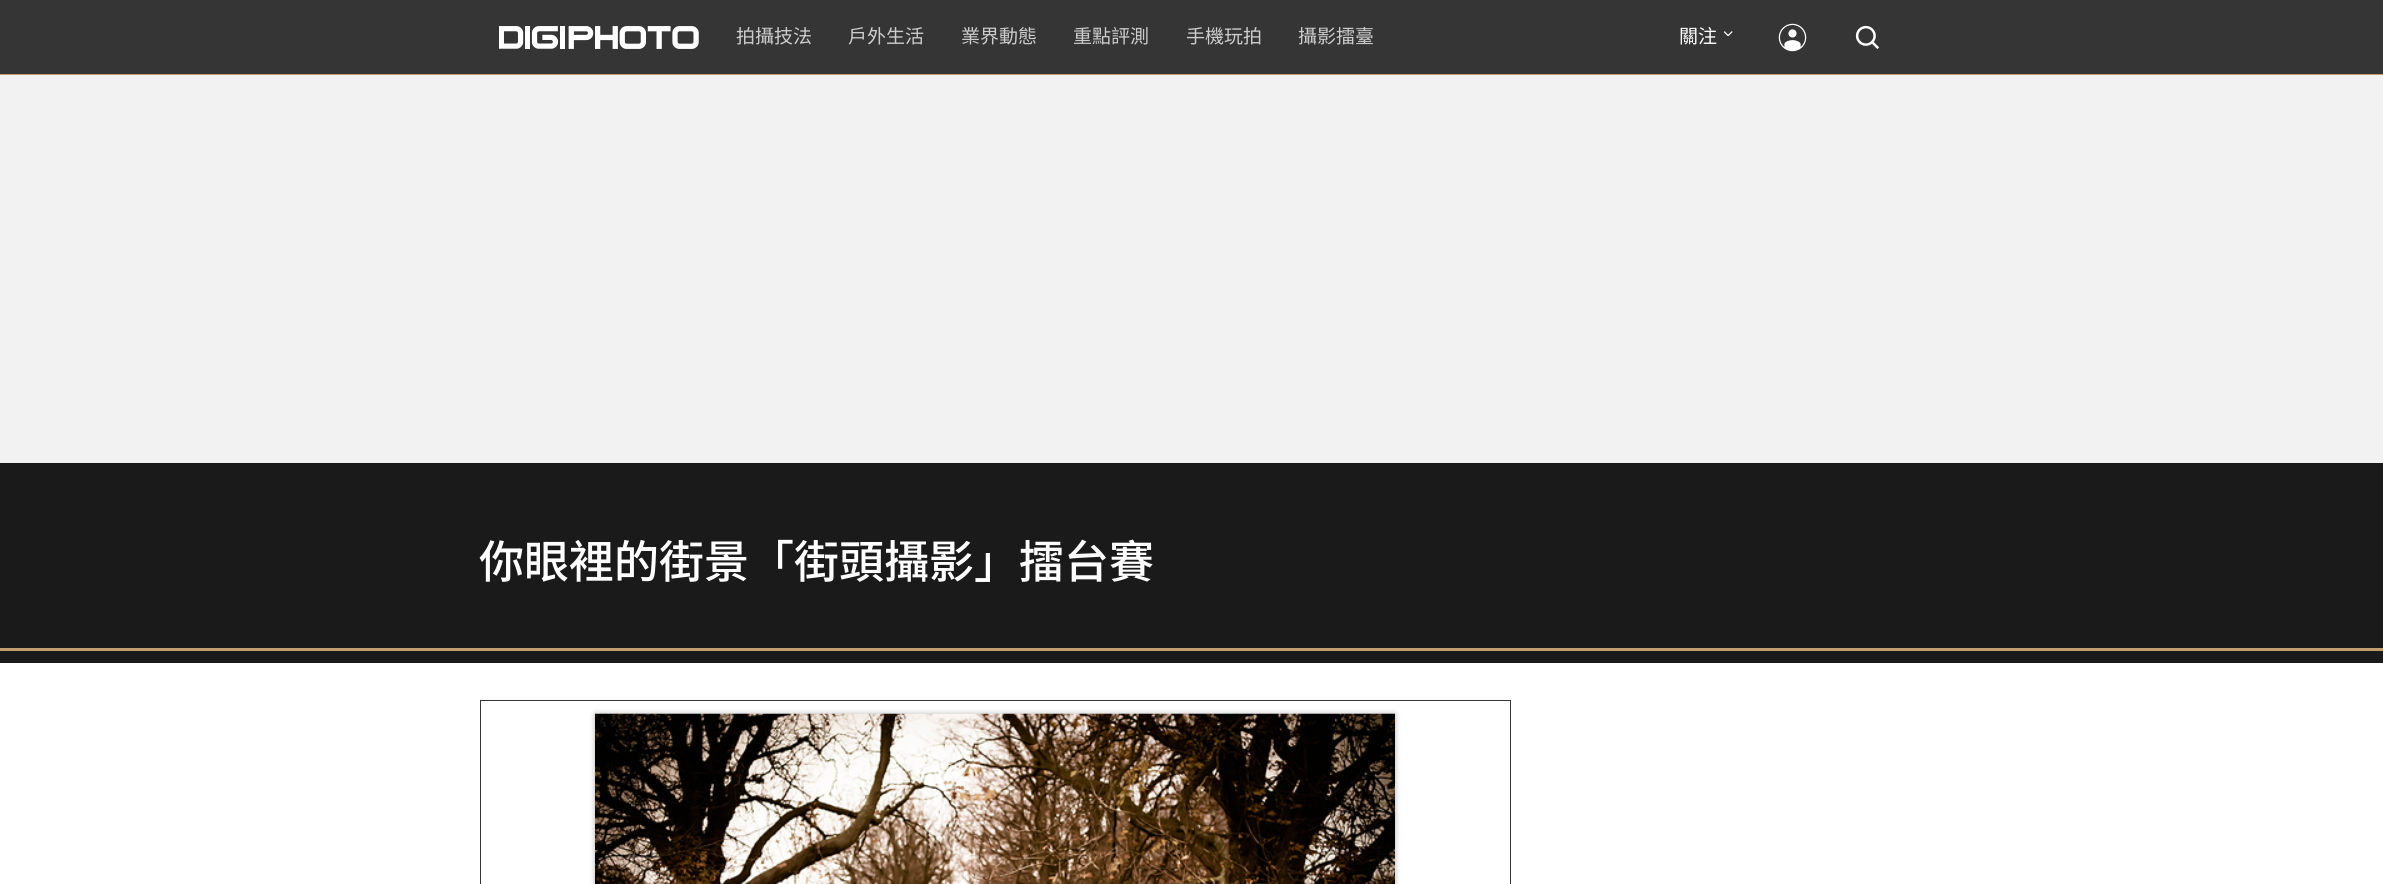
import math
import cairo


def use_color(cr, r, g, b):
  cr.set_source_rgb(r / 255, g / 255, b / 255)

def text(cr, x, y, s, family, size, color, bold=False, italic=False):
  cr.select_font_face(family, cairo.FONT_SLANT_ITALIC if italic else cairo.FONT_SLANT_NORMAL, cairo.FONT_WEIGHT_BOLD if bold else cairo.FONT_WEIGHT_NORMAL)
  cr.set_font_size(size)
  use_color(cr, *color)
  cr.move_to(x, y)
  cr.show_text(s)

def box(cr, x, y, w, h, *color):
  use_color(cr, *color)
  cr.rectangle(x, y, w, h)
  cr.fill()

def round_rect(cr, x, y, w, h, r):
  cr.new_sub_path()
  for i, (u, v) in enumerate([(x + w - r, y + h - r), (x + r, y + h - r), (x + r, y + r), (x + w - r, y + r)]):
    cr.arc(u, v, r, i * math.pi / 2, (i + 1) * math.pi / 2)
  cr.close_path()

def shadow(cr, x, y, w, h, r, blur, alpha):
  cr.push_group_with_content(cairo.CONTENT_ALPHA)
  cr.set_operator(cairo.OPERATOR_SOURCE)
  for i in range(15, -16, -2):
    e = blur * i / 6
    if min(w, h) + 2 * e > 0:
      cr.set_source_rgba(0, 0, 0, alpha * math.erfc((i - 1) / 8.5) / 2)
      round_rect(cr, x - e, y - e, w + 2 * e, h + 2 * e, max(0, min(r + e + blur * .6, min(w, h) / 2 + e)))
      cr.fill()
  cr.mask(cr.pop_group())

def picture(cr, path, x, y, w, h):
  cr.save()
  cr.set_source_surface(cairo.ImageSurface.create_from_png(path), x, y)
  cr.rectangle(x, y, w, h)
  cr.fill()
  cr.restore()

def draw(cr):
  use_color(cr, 255, 255, 255)
  cr.paint()
  box(cr, 0, 0, 2383, 74, 53, 53, 53)
  box(cr, 0, 74, 2383, 1, 192, 158, 112)
  picture(cr, "img_01.png", 499, 26, 200, 23)
  picture(cr, "img_02.png", 1724, 31, 9, 5)
  picture(cr, "img_03.png", 1778, 23, 29, 29)
  picture(cr, "img_04.png", 1855, 25, 24, 24)
  box(cr, 0, 75, 2383, 388, 242, 242, 242)
  box(cr, 0, 463, 2383, 200, 26, 26, 26)
  box(cr, 0, 648, 2383, 3, 192, 158, 112)
  cr.rectangle(480.5, 700.5, 1030, 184)
  use_color(cr, 53, 53, 53)
  cr.set_line_width(1)
  cr.stroke()
  use_color(cr, 0, 0, 0)
  shadow(cr, 595, 714, 800, 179, 0, 3, 0.3)
  picture(cr, "img_05.png", 595, 713, 800, 171)
  text(cr, 736, 43, "拍攝技法", "Noto Sans TC", 19, (204, 204, 204))
  text(cr, 848, 43, "戶外生活", "Noto Sans TC", 19, (204, 204, 204))
  text(cr, 961, 43, "業界動態", "Noto Sans TC", 19, (204, 204, 204))
  text(cr, 1073, 43, "重點評測", "Noto Sans TC", 19, (204, 204, 204))
  text(cr, 1186, 43, "手機玩拍", "Noto Sans TC", 19, (204, 204, 204))
  text(cr, 1298, 43, "攝影擂臺", "Noto Sans TC", 19, (204, 204, 204))
  text(cr, 1679, 43, "關注", "Noto Sans TC", 19, (255, 255, 255))
  text(cr, 479, 578, "你眼裡的街景「街頭攝影」擂台賽", "Noto Sans TC Medium", 45, (255, 255, 255))


surface = cairo.ImageSurface(cairo.FORMAT_RGB24, 2383, 884)
cr = cairo.Context(surface)
options = cairo.FontOptions()
options.set_hint_metrics(cairo.HINT_METRICS_OFF)
options.set_hint_style(cairo.HINT_STYLE_NONE)
cr.set_font_options(options)
cr.set_miter_limit(4)
draw(cr)
surface.write_to_png("out.png")
